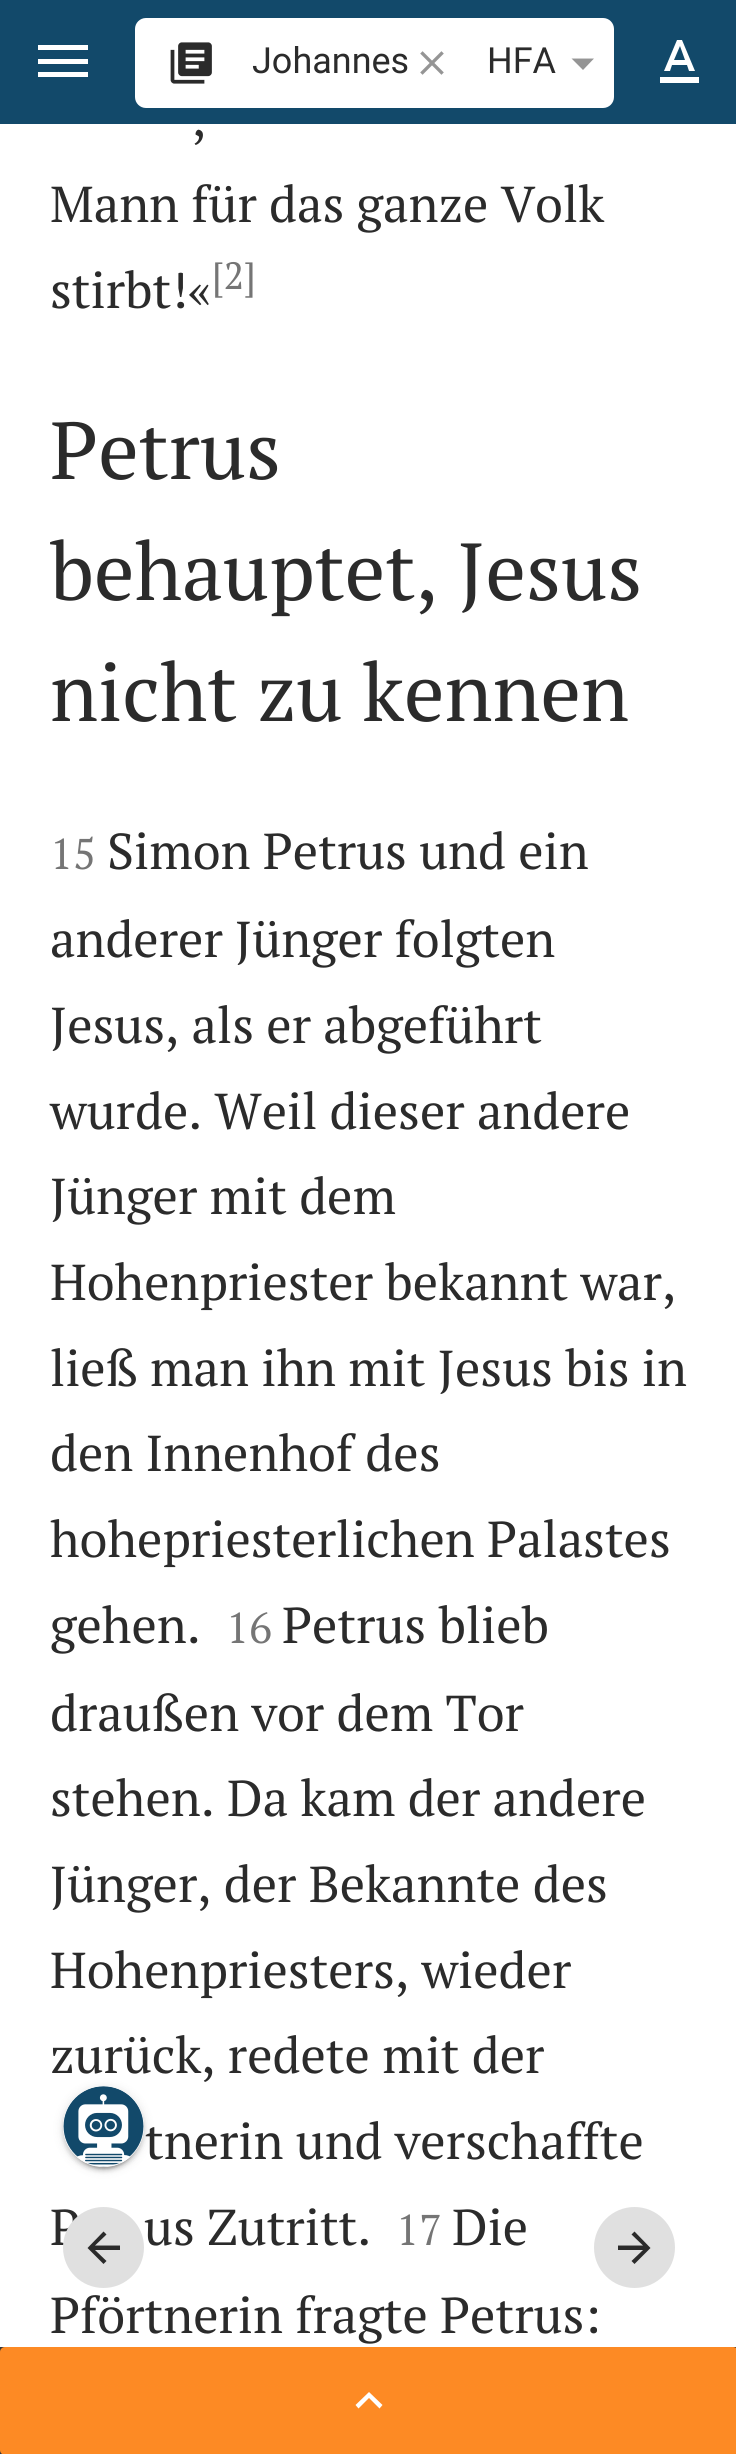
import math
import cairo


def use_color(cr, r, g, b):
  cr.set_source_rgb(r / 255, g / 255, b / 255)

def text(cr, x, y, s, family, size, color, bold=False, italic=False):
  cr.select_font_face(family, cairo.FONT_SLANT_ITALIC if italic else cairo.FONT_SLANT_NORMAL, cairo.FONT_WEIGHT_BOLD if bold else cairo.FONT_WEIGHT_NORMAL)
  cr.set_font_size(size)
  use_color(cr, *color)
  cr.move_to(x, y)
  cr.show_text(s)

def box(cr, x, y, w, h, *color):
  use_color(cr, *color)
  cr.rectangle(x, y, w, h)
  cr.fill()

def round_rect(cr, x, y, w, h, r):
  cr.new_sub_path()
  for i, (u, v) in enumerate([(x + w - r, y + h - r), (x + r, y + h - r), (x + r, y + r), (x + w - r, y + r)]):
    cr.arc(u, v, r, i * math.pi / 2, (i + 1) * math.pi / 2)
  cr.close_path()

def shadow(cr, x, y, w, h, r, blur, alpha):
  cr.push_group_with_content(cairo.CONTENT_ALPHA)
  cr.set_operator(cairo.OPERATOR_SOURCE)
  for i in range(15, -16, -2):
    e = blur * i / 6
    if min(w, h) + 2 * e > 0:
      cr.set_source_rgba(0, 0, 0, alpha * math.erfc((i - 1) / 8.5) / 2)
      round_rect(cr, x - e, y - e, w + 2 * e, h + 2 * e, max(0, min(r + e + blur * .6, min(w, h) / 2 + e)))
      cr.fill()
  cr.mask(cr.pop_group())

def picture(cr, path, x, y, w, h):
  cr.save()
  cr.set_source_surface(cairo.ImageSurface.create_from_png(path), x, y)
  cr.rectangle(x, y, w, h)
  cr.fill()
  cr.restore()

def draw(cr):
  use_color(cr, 255, 255, 255)
  cr.paint()
  box(cr, 0, 0, 736, 124, 18, 73, 106)
  box(cr, 38, 45, 50, 5, 255, 255, 255)
  box(cr, 38, 59, 50, 5, 255, 255, 255)
  box(cr, 38, 72, 50, 5, 255, 255, 255)
  round_rect(cr, 135, 18, 479, 90, 11)
  cr.fill()
  picture(cr, "img_01.png", 170, 42, 42, 42)
  picture(cr, "img_02.png", 420, 51, 24, 24)
  use_color(cr, 149, 149, 149)
  cr.new_path()
  cr.move_to(571.5, 58.5)
  cr.line_to(583, 70)
  cr.line_to(594, 58.5)
  cr.close_path()
  cr.fill()
  use_color(cr, 255, 255, 255)
  cr.new_path()
  cr.move_to(660, 77)
  cr.line_to(660, 83)
  cr.line_to(699, 83)
  cr.line_to(699, 77)
  cr.close_path()
  cr.move_to(672, 65)
  cr.line_to(687, 65)
  cr.line_to(689, 71)
  cr.line_to(695, 71)
  cr.line_to(682, 40)
  cr.line_to(677, 40)
  cr.line_to(664, 71)
  cr.line_to(670, 71)
  cr.close_path()
  cr.move_to(680, 46)
  cr.line_to(685, 60)
  cr.line_to(674, 60)
  cr.close_path()
  cr.fill()
  use_color(cr, 224, 224, 224)
  cr.arc(634.5, 2247.5, 40.5, 0, 2 * math.pi)
  cr.fill()
  use_color(cr, 43, 43, 43)
  cr.new_path()
  cr.move_to(618, 2245.5)
  cr.line_to(618, 2250)
  cr.line_to(643, 2250)
  cr.line_to(631.5, 2261)
  cr.line_to(634.5, 2264)
  cr.line_to(650.5, 2248)
  cr.line_to(634.5, 2231.5)
  cr.line_to(631.5, 2234.5)
  cr.line_to(643, 2245.5)
  cr.close_path()
  cr.fill()
  box(cr, 0, 2347, 736, 107, 54, 54, 54)
  use_color(cr, 253, 138, 36)
  round_rect(cr, 0, 2347, 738, 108, 5)
  cr.fill()
  use_color(cr, 255, 255, 255)
  cr.new_path()
  cr.move_to(358.5, 2408.5)
  cr.line_to(369, 2398)
  cr.line_to(379.5, 2408.5)
  cr.line_to(382.5, 2405)
  cr.line_to(369, 2392)
  cr.line_to(355.5, 2405)
  cr.close_path()
  cr.fill()
  use_color(cr, 0, 0, 0)
  shadow(cr, 63, 2088, 81, 81, 40.5, 5.5, 0.12)
  shadow(cr, 63, 2090, 81, 81, 40.5, 2, 0.14)
  shadow(cr, 68, 2097, 72, 72, 36, 1, 0.2)
  use_color(cr, 255, 255, 255)
  cr.arc(103.5, 2126.5, 40.5, 0, 2 * math.pi)
  cr.fill()
  picture(cr, "img_03.png", 63, 2086, 81, 81)
  text(cr, 252, 73, "Johannes", "Roboto", 36, (43, 43, 43))
  text(cr, 487, 73, "HFA", "Roboto", 36, (43, 43, 43))
  text(cr, 192, 136, ",", "PT Serif", 50.4, (43, 43, 43))
  text(cr, 50, 222, "Mann für das ganze Volk", "PT Serif", 50.4, (43, 43, 43))
  text(cr, 50, 308, "stirbt!«", "PT Serif", 50.4, (43, 43, 43))
  text(cr, 212, 289, "[2]", "PT Serif", 38, (117, 117, 117))
  text(cr, 50, 479, "Petrus", "PT Serif", 80.75, (43, 43, 43))
  text(cr, 50, 600, "behauptet, Jesus", "PT Serif", 80.75, (43, 43, 43))
  text(cr, 50, 721, "nicht zu kennen", "PT Serif", 80.75, (43, 43, 43))
  text(cr, 50, 869, "15", "PT Serif", 43, (117, 117, 117))
  text(cr, 107, 869, "Simon Petrus und ein", "PT Serif", 50.4, (43, 43, 43))
  text(cr, 50, 957, "anderer Jünger folgten", "PT Serif", 50.4, (43, 43, 43))
  text(cr, 50, 1043, "Jesus, als er abgeführt", "PT Serif", 50.4, (43, 43, 43))
  text(cr, 50, 1129, "wurde. Weil dieser andere", "PT Serif", 50.4, (43, 43, 43))
  text(cr, 50, 1214, "Jünger mit dem", "PT Serif", 50.4, (43, 43, 43))
  text(cr, 50, 1300, "Hohenpriester bekannt war,", "PT Serif", 50.4, (43, 43, 43))
  text(cr, 50, 1386, "ließ man ihn mit Jesus bis in", "PT Serif", 50.4, (43, 43, 43))
  text(cr, 50, 1471, "den Innenhof des", "PT Serif", 50.4, (43, 43, 43))
  text(cr, 50, 1557, "hohepriesterlichen Palastes", "PT Serif", 50.4, (43, 43, 43))
  text(cr, 50, 1643, "gehen.", "PT Serif", 50.4, (43, 43, 43))
  text(cr, 226, 1643, "16", "PT Serif", 43, (117, 117, 117))
  text(cr, 282, 1643, "Petrus blieb", "PT Serif", 50.4, (43, 43, 43))
  text(cr, 50, 1731, "draußen vor dem Tor", "PT Serif", 50.4, (43, 43, 43))
  text(cr, 50, 1816, "stehen. Da kam der andere", "PT Serif", 50.4, (43, 43, 43))
  text(cr, 50, 1902, "Jünger, der Bekannte des", "PT Serif", 50.4, (43, 43, 43))
  text(cr, 50, 1988, "Hohenpriesters, wieder", "PT Serif", 50.4, (43, 43, 43))
  text(cr, 50, 2073, "zurück, redete mit der", "PT Serif", 50.4, (43, 43, 43))
  text(cr, 145, 2159, "tnerin und verschaffte", "PT Serif", 50.4, (43, 43, 43))
  text(cr, 50, 2245, "P", "PT Serif", 50.4, (43, 43, 43))
  text(cr, 144, 2245, "us Zutritt.", "PT Serif", 50.4, (43, 43, 43))
  text(cr, 396, 2245, "17", "PT Serif", 43, (117, 117, 117))
  text(cr, 452, 2245, "Die", "PT Serif", 50.4, (43, 43, 43))
  text(cr, 50, 2333, "Pförtnerin fragte Petrus:", "PT Serif", 50.4, (43, 43, 43))
  use_color(cr, 224, 224, 224)
  cr.new_path()
  cr.arc(103.5, 2247.5, 40.5, 0, 2 * math.pi)
  cr.fill()
  use_color(cr, 43, 43, 43)
  cr.new_path()
  cr.move_to(120, 2245.5)
  cr.line_to(120, 2250)
  cr.line_to(95, 2250)
  cr.line_to(106.5, 2261)
  cr.line_to(103.5, 2264)
  cr.line_to(87.5, 2248)
  cr.line_to(103.5, 2231.5)
  cr.line_to(106.5, 2234.5)
  cr.line_to(95, 2245.5)
  cr.close_path()
  cr.fill()


surface = cairo.ImageSurface(cairo.FORMAT_RGB24, 736, 2454)
cr = cairo.Context(surface)
options = cairo.FontOptions()
options.set_hint_metrics(cairo.HINT_METRICS_OFF)
options.set_hint_style(cairo.HINT_STYLE_NONE)
cr.set_font_options(options)
cr.set_miter_limit(4)
draw(cr)
surface.write_to_png("out.png")
